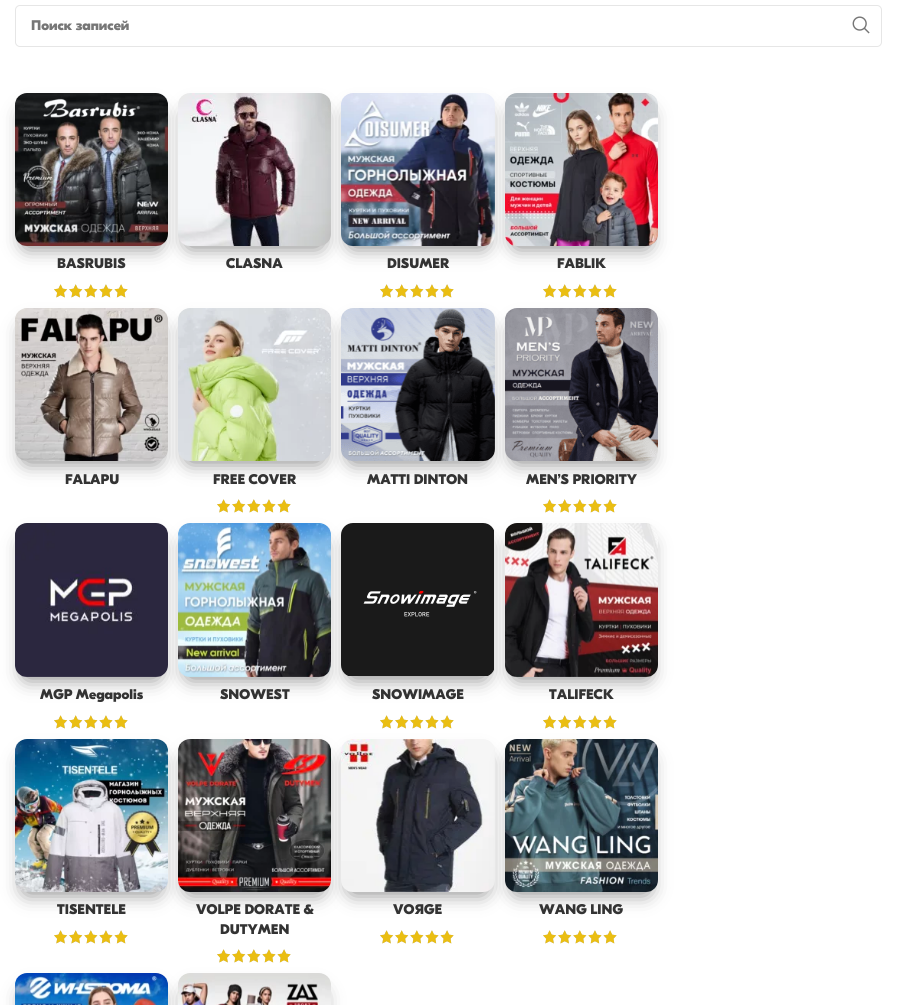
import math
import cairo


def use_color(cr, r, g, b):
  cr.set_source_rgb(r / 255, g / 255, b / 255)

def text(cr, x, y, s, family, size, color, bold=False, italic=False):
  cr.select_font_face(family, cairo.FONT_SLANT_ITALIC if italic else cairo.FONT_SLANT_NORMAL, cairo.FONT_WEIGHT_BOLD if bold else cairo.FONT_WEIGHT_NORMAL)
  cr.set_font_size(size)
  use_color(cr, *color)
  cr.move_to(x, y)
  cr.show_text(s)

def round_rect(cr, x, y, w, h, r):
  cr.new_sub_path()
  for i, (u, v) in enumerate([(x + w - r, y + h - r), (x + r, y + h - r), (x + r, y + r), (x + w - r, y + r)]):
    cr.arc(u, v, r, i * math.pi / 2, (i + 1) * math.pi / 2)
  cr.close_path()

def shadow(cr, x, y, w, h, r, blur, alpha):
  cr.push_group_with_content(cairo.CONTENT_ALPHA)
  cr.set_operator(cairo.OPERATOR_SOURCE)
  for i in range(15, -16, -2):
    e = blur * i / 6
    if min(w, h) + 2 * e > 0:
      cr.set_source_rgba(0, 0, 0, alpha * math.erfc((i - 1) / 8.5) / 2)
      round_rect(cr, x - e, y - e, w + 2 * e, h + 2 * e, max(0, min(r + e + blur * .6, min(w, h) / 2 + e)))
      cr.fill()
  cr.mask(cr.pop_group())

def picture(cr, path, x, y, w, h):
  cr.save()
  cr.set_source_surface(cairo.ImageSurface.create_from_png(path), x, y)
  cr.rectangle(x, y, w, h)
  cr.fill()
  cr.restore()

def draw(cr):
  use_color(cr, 255, 255, 255)
  cr.paint()
  round_rect(cr, 15.5, 5.5, 866, 41, 4.5)
  use_color(cr, 230, 230, 230)
  cr.set_line_width(1)
  cr.stroke()
  picture(cr, "img_01.png", 852, 16, 18, 18)
  use_color(cr, 0, 0, 0)
  shadow(cr, 24, 112, 135, 135, 3, 10, 0.5)
  picture(cr, "img_02.png", 15, 93, 153, 153)
  picture(cr, "img_03.png", 54, 284, 74, 14)
  picture(cr, "img_04.png", 54, 284, 74, 14)
  shadow(cr, 187, 112, 135, 135, 3, 10, 0.5)
  picture(cr, "img_05.png", 178, 93, 153, 153)
  shadow(cr, 350, 112, 136, 135, 3, 10, 0.5)
  picture(cr, "img_06.png", 341, 93, 154, 153)
  picture(cr, "img_03.png", 380, 284, 74, 14)
  picture(cr, "img_04.png", 380, 284, 74, 14)
  shadow(cr, 514, 112, 135, 135, 3, 10, 0.5)
  picture(cr, "img_07.png", 505, 93, 153, 153)
  picture(cr, "img_03.png", 543, 284, 74, 14)
  picture(cr, "img_04.png", 543, 284, 74, 14)
  shadow(cr, 24, 327, 135, 135, 3, 10, 0.5)
  picture(cr, "img_08.png", 15, 308, 153, 153)
  shadow(cr, 187, 327, 135, 135, 3, 10, 0.5)
  picture(cr, "img_09.png", 178, 308, 153, 153)
  picture(cr, "img_03.png", 217, 499, 74, 14)
  picture(cr, "img_04.png", 217, 499, 74, 14)
  shadow(cr, 350, 327, 136, 135, 3, 10, 0.5)
  picture(cr, "img_10.png", 341, 308, 154, 153)
  shadow(cr, 514, 327, 135, 135, 3, 10, 0.5)
  picture(cr, "img_11.png", 505, 308, 153, 153)
  picture(cr, "img_03.png", 543, 499, 74, 14)
  picture(cr, "img_04.png", 543, 499, 74, 14)
  shadow(cr, 24, 542, 135, 136, 3, 10, 0.5)
  picture(cr, "img_12.png", 15, 523, 153, 154)
  picture(cr, "img_03.png", 54, 715, 74, 14)
  picture(cr, "img_04.png", 54, 715, 74, 14)
  shadow(cr, 187, 542, 135, 136, 3, 10, 0.5)
  picture(cr, "img_13.png", 178, 523, 153, 154)
  shadow(cr, 350, 542, 136, 136, 3, 10, 0.5)
  picture(cr, "img_14.png", 341, 523, 153, 153)
  picture(cr, "img_03.png", 380, 715, 74, 14)
  picture(cr, "img_04.png", 380, 715, 74, 14)
  shadow(cr, 514, 542, 135, 136, 3, 10, 0.5)
  picture(cr, "img_15.png", 505, 523, 153, 154)
  picture(cr, "img_03.png", 543, 715, 74, 14)
  picture(cr, "img_04.png", 543, 715, 74, 14)
  shadow(cr, 24, 758, 135, 135, 3, 10, 0.5)
  picture(cr, "img_16.png", 15, 739, 153, 153)
  picture(cr, "img_03.png", 54, 930, 74, 14)
  picture(cr, "img_04.png", 54, 930, 74, 14)
  shadow(cr, 187, 758, 135, 135, 3, 10, 0.5)
  picture(cr, "img_17.png", 178, 739, 153, 153)
  picture(cr, "img_03.png", 217, 949, 74, 14)
  picture(cr, "img_04.png", 217, 949, 74, 14)
  shadow(cr, 350, 758, 136, 135, 3, 10, 0.5)
  picture(cr, "img_18.png", 341, 739, 154, 153)
  picture(cr, "img_03.png", 380, 930, 74, 14)
  picture(cr, "img_04.png", 380, 930, 74, 14)
  shadow(cr, 514, 758, 135, 135, 3, 10, 0.5)
  picture(cr, "img_19.png", 505, 739, 153, 153)
  picture(cr, "img_03.png", 543, 930, 74, 14)
  picture(cr, "img_04.png", 543, 930, 74, 14)
  shadow(cr, 24, 992, 135, 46, 3, 10, 0.5)
  picture(cr, "img_20.png", 15, 973, 153, 32)
  shadow(cr, 187, 992, 135, 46, 3, 10, 0.5)
  picture(cr, "img_21.png", 178, 973, 153, 32)
  text(cr, 31, 30, "Поиск записей", "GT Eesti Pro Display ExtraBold", 14, (118, 118, 118))
  text(cr, 57, 268, "BASRUBIS", "GT Eesti Pro Display ExtraBold", 14, (51, 51, 51))
  text(cr, 226, 268, "CLASNA", "GT Eesti Pro Display ExtraBold", 14, (51, 51, 51))
  text(cr, 387, 268, "DISUMER", "GT Eesti Pro Display ExtraBold", 14, (51, 51, 51))
  text(cr, 557, 268, "FABLIK", "GT Eesti Pro Display ExtraBold", 14, (51, 51, 51))
  text(cr, 65, 484, "FALAPU", "GT Eesti Pro Display ExtraBold", 14, (51, 51, 51))
  text(cr, 213, 484, "FREE COVER", "GT Eesti Pro Display ExtraBold", 14, (51, 51, 51))
  text(cr, 367, 484, "MATTI DINTON", "GT Eesti Pro Display ExtraBold", 14, (51, 51, 51))
  text(cr, 526, 484, "MEN’S PRIORITY", "GT Eesti Pro Display ExtraBold", 14, (51, 51, 51))
  text(cr, 40, 699, "MGP Megapolis", "GT Eesti Pro Display ExtraBold", 14, (51, 51, 51))
  text(cr, 220, 699, "SNOWEST", "GT Eesti Pro Display ExtraBold", 14, (51, 51, 51))
  text(cr, 372, 699, "SNOWIMAGE", "GT Eesti Pro Display ExtraBold", 14, (51, 51, 51))
  text(cr, 549, 699, "TALIFECK", "GT Eesti Pro Display ExtraBold", 14, (51, 51, 51))
  text(cr, 57, 914, "TISENTELE", "GT Eesti Pro Display ExtraBold", 14, (51, 51, 51))
  text(cr, 196, 914, "VOLPE DORATE &", "GT Eesti Pro Display ExtraBold", 14, (51, 51, 51))
  text(cr, 220, 934, "DUTYMEN", "GT Eesti Pro Display ExtraBold", 14, (51, 51, 51))
  text(cr, 393, 914, "VOЯGE", "GT Eesti Pro Display ExtraBold", 14, (51, 51, 51))
  text(cr, 539, 914, "WANG LING", "GT Eesti Pro Display ExtraBold", 14, (51, 51, 51))


surface = cairo.ImageSurface(cairo.FORMAT_RGB24, 897, 1005)
cr = cairo.Context(surface)
options = cairo.FontOptions()
options.set_hint_metrics(cairo.HINT_METRICS_OFF)
options.set_hint_style(cairo.HINT_STYLE_NONE)
cr.set_font_options(options)
cr.set_miter_limit(4)
draw(cr)
surface.write_to_png("out.png")
